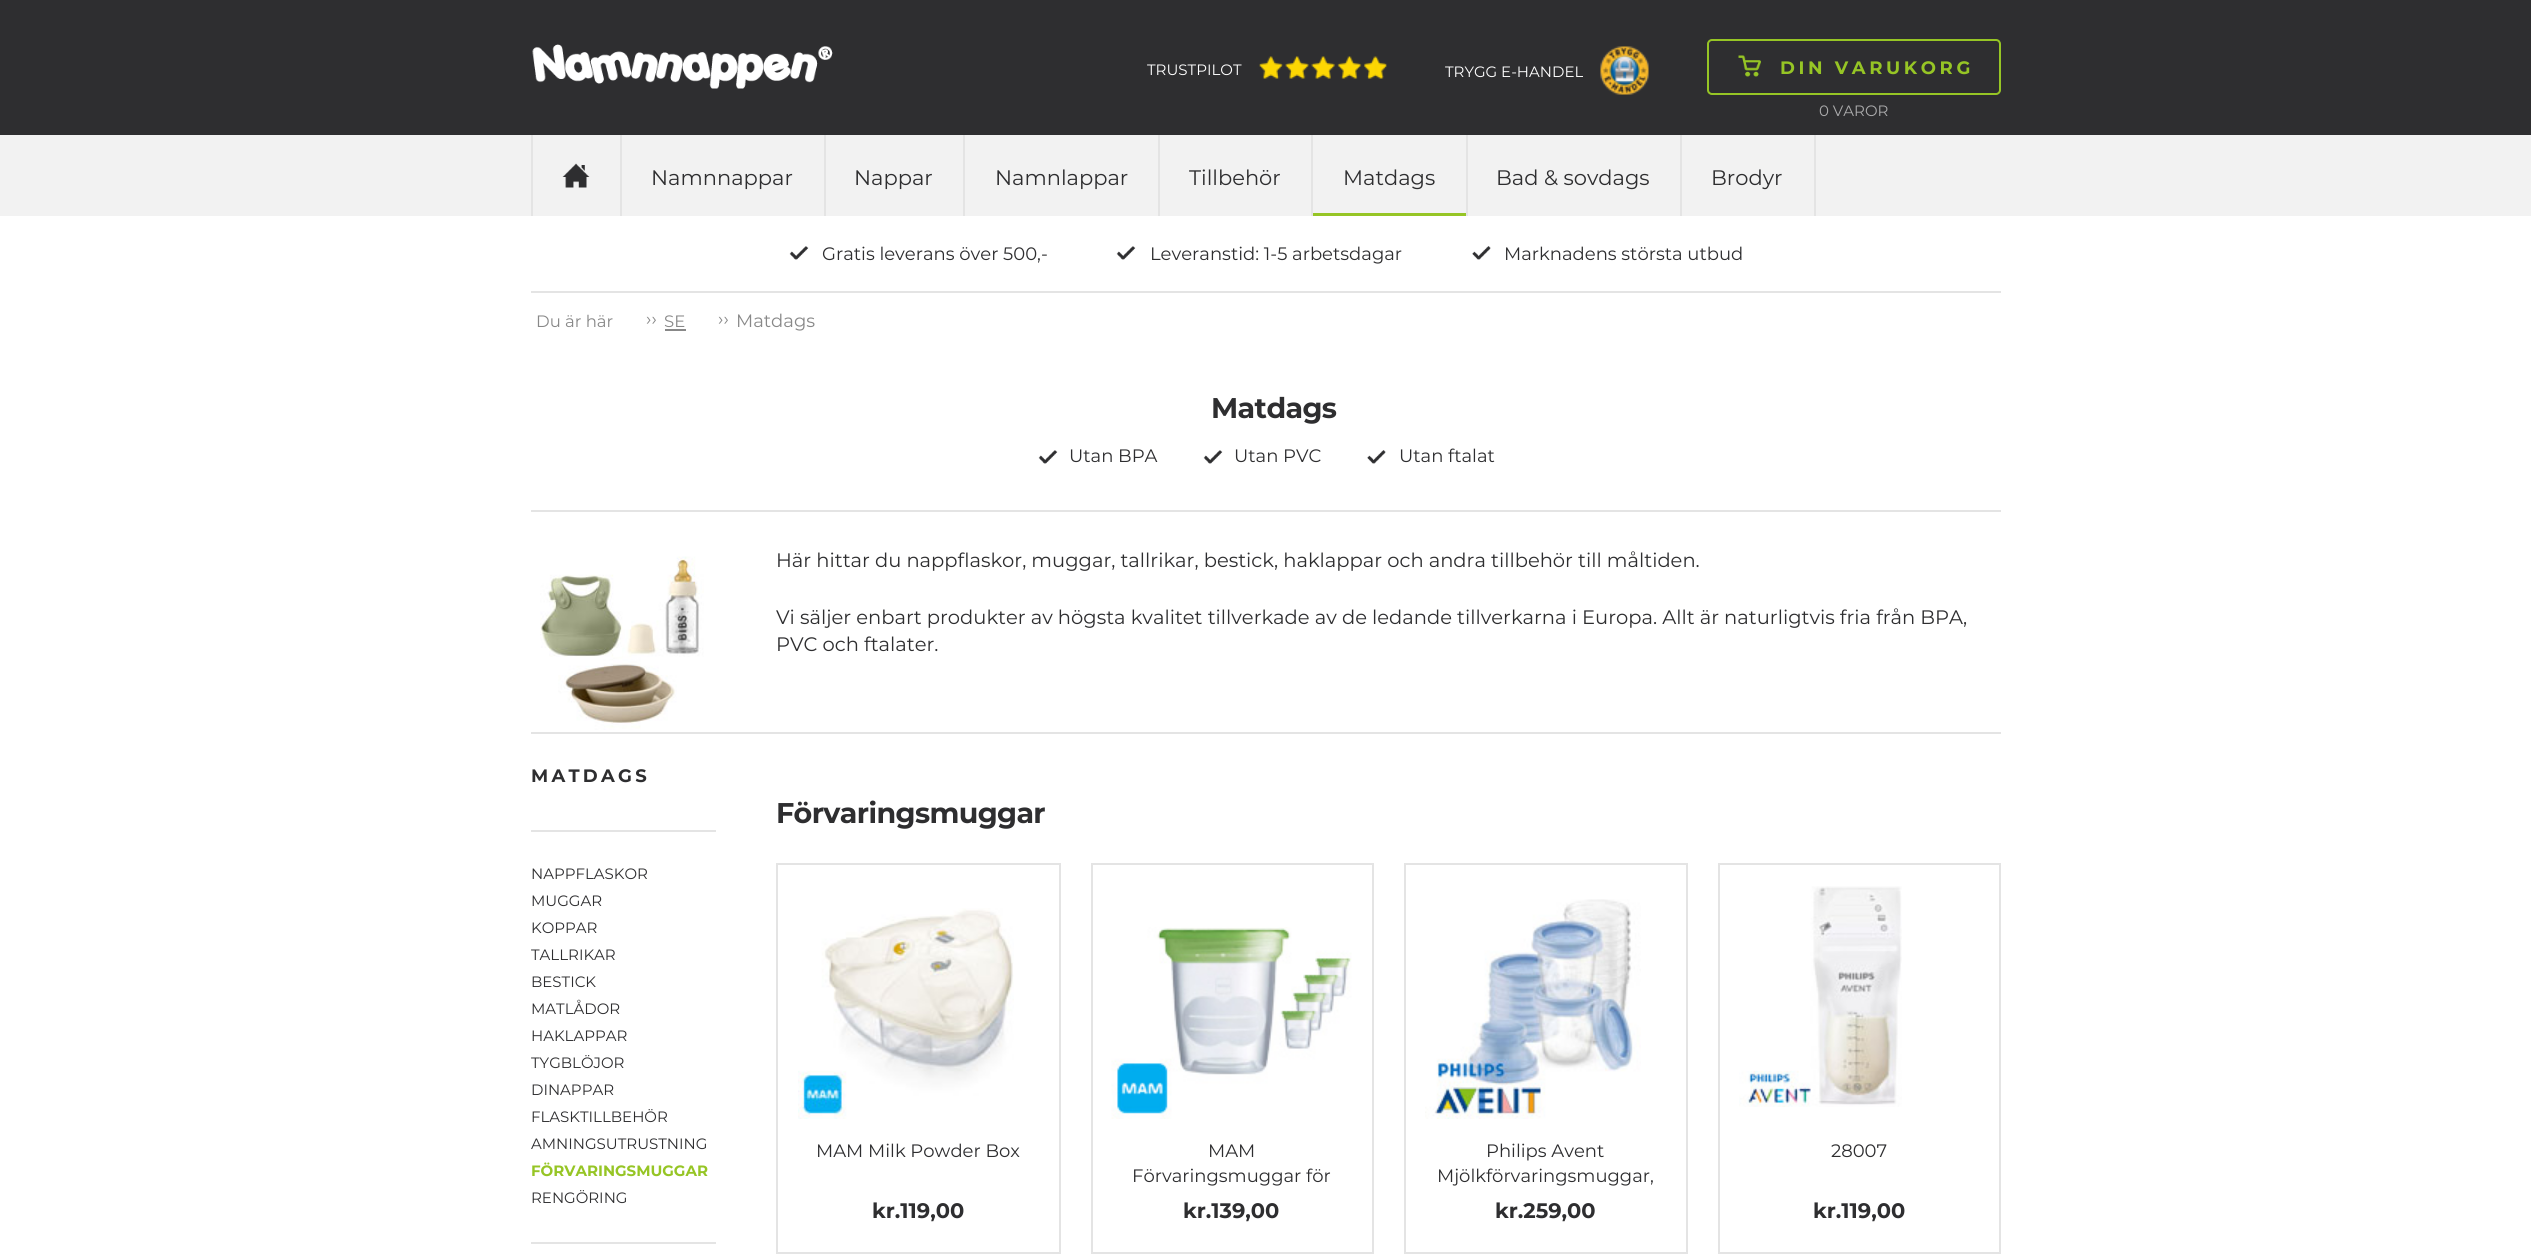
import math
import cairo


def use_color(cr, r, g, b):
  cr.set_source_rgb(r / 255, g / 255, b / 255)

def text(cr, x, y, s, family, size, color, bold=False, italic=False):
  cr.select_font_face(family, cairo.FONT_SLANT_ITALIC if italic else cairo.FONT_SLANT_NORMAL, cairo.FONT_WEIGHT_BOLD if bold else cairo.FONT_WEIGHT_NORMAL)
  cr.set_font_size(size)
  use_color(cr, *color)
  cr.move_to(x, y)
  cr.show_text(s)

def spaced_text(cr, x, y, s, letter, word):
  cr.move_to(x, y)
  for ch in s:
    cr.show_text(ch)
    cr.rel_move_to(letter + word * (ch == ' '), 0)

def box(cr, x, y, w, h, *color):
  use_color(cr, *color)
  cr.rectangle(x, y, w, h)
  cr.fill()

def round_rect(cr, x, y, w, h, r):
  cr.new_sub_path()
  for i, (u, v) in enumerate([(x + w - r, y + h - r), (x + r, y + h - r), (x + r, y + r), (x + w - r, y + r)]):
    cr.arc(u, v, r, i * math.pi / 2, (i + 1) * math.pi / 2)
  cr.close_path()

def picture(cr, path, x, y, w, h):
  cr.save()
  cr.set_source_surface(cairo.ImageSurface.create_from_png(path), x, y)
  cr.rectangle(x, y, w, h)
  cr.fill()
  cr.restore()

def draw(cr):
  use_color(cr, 255, 255, 255)
  cr.paint()
  box(cr, 0, 0, 2531, 135, 46, 46, 48)
  picture(cr, "img_01.png", 532, 44, 301, 45)
  picture(cr, "img_02.png", 1259, 56, 128, 23)
  picture(cr, "img_03.png", 1600, 46, 49, 49)
  round_rect(cr, 1708, 40, 292, 54, 4)
  use_color(cr, 150, 197, 37)
  cr.stroke()
  picture(cr, "img_04.png", 1738, 55, 23, 22)
  box(cr, 0, 135, 2531, 81, 242, 242, 242)
  box(cr, 620, 135, 2, 81, 228, 228, 228)
  box(cr, 531, 135, 2, 81, 228, 228, 228)
  picture(cr, "img_05.png", 562, 163, 28, 25)
  box(cr, 824, 135, 2, 81, 228, 228, 228)
  box(cr, 963, 135, 2, 81, 228, 228, 228)
  box(cr, 1158, 135, 2, 81, 228, 228, 228)
  box(cr, 1311, 135, 2, 81, 228, 228, 228)
  box(cr, 1466, 135, 2, 81, 228, 228, 228)
  box(cr, 1313, 213, 153, 3, 150, 197, 37)
  box(cr, 1680, 135, 2, 81, 228, 228, 228)
  box(cr, 1814, 135, 2, 81, 228, 228, 228)
  picture(cr, "img_06.png", 789, 246, 20, 14)
  picture(cr, "img_07.png", 1116, 246, 20, 14)
  picture(cr, "img_08.png", 1472, 246, 19, 14)
  box(cr, 531, 291, 1470, 2, 228, 228, 228)
  box(cr, 665, 329, 21, 2, 136, 136, 136)
  box(cr, 531, 510, 1470, 2, 228, 228, 228)
  picture(cr, "img_09.png", 1038, 450, 20, 14)
  picture(cr, "img_07.png", 1203, 450, 20, 14)
  picture(cr, "img_08.png", 1367, 450, 19, 14)
  box(cr, 531, 732, 1470, 2, 228, 228, 228)
  picture(cr, "img_10.png", 540, 556, 164, 174)
  box(cr, 531, 830, 185, 2, 228, 228, 228)
  box(cr, 531, 1242, 185, 2, 228, 228, 228)
  cr.rectangle(777, 864, 283, 389)
  cr.stroke()
  picture(cr, "img_11.png", 798, 908, 216, 211)
  cr.rectangle(1092, 864, 281, 389)
  cr.stroke()
  picture(cr, "img_12.png", 1111, 927, 241, 192)
  cr.rectangle(1405, 864, 282, 389)
  cr.stroke()
  picture(cr, "img_13.png", 1425, 899, 216, 220)
  cr.rectangle(1719, 864, 281, 389)
  cr.stroke()
  picture(cr, "img_14.png", 1739, 886, 163, 221)
  text(cr, 1147, 75, "TRUSTPILOT", "Montserrat", 15, (255, 255, 255))
  text(cr, 1445, 77, "TRYGG E-HANDEL", "Montserrat", 15, (255, 255, 255))
  cr.select_font_face("Montserrat", cairo.FONT_SLANT_NORMAL, cairo.FONT_WEIGHT_BOLD)
  cr.set_font_size(18)
  use_color(cr, 150, 197, 37)
  spaced_text(cr, 1780, 74, "DIN VARUKORG", 3.6, 0)
  text(cr, 1819, 116, "0 VAROR", "Montserrat", 15, (171, 171, 172))
  text(cr, 651, 185, "Namnnappar", "Montserrat", 21, (46, 46, 48))
  text(cr, 854, 185, "Nappar", "Montserrat", 21, (46, 46, 48))
  text(cr, 995, 185, "Namnlappar", "Montserrat", 21, (46, 46, 48))
  text(cr, 1189, 185, "Tillbehör", "Montserrat", 21, (46, 46, 48))
  text(cr, 1343, 185, "Matdags", "Montserrat", 21, (46, 46, 48))
  text(cr, 1496, 185, "Bad & sovdags", "Montserrat", 21, (46, 46, 48))
  text(cr, 1711, 185, "Brodyr", "Montserrat", 21, (46, 46, 48))
  text(cr, 822, 260, "Gratis leverans över 500,-", "Montserrat", 18, (46, 46, 48))
  text(cr, 1150, 260, "Leveranstid: 1-5 arbetsdagar", "Montserrat", 18, (46, 46, 48))
  text(cr, 1504, 260, "Marknadens största utbud", "Montserrat", 18, (46, 46, 48))
  text(cr, 536, 327, "Du är här", "Montserrat", 16.5, (136, 136, 136))
  text(cr, 646, 325, "››", "Montserrat", 18, (136, 136, 136))
  text(cr, 664, 327, "SE", "Montserrat", 16.5, (136, 136, 136))
  text(cr, 718, 325, "››", "Montserrat", 18, (136, 136, 136))
  text(cr, 736, 327, "Matdags", "Montserrat", 18, (136, 136, 136))
  cr.select_font_face("Montserrat", cairo.FONT_SLANT_NORMAL, cairo.FONT_WEIGHT_BOLD)
  cr.set_font_size(28.5)
  use_color(cr, 46, 46, 48)
  spaced_text(cr, 1211, 418, "Matdags", -0.6, 0)
  text(cr, 1069, 462, "Utan BPA", "Montserrat", 18, (46, 46, 48))
  text(cr, 1234, 462, "Utan PVC", "Montserrat", 18, (46, 46, 48))
  text(cr, 1399, 462, "Utan ftalat", "Montserrat", 18, (46, 46, 48))
  text(cr, 776, 567, "Här hittar du nappflaskor, muggar, tallrikar, bestick, haklappar och andra tillbehör till måltiden.", "Montserrat", 19.5, (46, 46, 48))
  text(cr, 776, 624, "Vi säljer enbart produkter av högsta kvalitet tillverkade av de ledande tillverkarna i Europa. Allt är naturligtvis fria från BPA,", "Montserrat", 19.5, (46, 46, 48))
  text(cr, 776, 651, "PVC och ftalater.", "Montserrat", 19.5, (46, 46, 48))
  cr.select_font_face("Montserrat", cairo.FONT_SLANT_NORMAL, cairo.FONT_WEIGHT_BOLD)
  cr.set_font_size(18)
  spaced_text(cr, 531, 782, "MATDAGS", 3.25, 0)
  text(cr, 531, 879, "NAPPFLASKOR", "Montserrat", 15, (46, 46, 48))
  text(cr, 531, 906, "MUGGAR", "Montserrat", 15, (46, 46, 48))
  text(cr, 531, 933, "KOPPAR", "Montserrat", 15, (46, 46, 48))
  text(cr, 531, 960, "TALLRIKAR", "Montserrat", 15, (46, 46, 48))
  text(cr, 531, 987, "BESTICK", "Montserrat", 15, (46, 46, 48))
  text(cr, 531, 1014, "MATLÅDOR", "Montserrat", 15, (46, 46, 48))
  text(cr, 531, 1041, "HAKLAPPAR", "Montserrat", 15, (46, 46, 48))
  text(cr, 531, 1068, "TYGBLÖJOR", "Montserrat", 15, (46, 46, 48))
  text(cr, 531, 1095, "DINAPPAR", "Montserrat", 15, (46, 46, 48))
  text(cr, 531, 1122, "FLASKTILLBEHÖR", "Montserrat", 15, (46, 46, 48))
  text(cr, 531, 1149, "AMNINGSUTRUSTNING", "Montserrat", 15, (46, 46, 48))
  text(cr, 531, 1176, "FÖRVARINGSMUGGAR", "Montserrat", 15, (150, 197, 37), bold=True)
  text(cr, 531, 1203, "RENGÖRING", "Montserrat", 15, (46, 46, 48))
  cr.select_font_face("Montserrat", cairo.FONT_SLANT_NORMAL, cairo.FONT_WEIGHT_BOLD)
  cr.set_font_size(28.5)
  spaced_text(cr, 776, 823, "Förvaringsmuggar", -0.6, 0)
  text(cr, 816, 1157, "MAM Milk Powder Box", "Montserrat", 18, (46, 46, 48))
  text(cr, 872, 1218, "kr.119,00", "Montserrat", 21, (46, 46, 48), bold=True)
  text(cr, 1208, 1157, "MAM", "Montserrat", 18, (46, 46, 48))
  text(cr, 1132, 1182, "Förvaringsmuggar för", "Montserrat", 18, (46, 46, 48))
  text(cr, 1183, 1218, "kr.139,00", "Montserrat", 21, (46, 46, 48), bold=True)
  text(cr, 1486, 1157, "Philips Avent", "Montserrat", 18, (46, 46, 48))
  text(cr, 1437, 1182, "Mjölkförvaringsmuggar,", "Montserrat", 18, (46, 46, 48))
  text(cr, 1495, 1218, "kr.259,00", "Montserrat", 21, (46, 46, 48), bold=True)
  text(cr, 1831, 1157, "28007", "Montserrat", 18, (46, 46, 48))
  text(cr, 1813, 1218, "kr.119,00", "Montserrat", 21, (46, 46, 48), bold=True)


surface = cairo.ImageSurface(cairo.FORMAT_RGB24, 2531, 1257)
cr = cairo.Context(surface)
options = cairo.FontOptions()
options.set_hint_metrics(cairo.HINT_METRICS_OFF)
options.set_hint_style(cairo.HINT_STYLE_NONE)
cr.set_font_options(options)
cr.set_miter_limit(4)
draw(cr)
surface.write_to_png("out.png")
